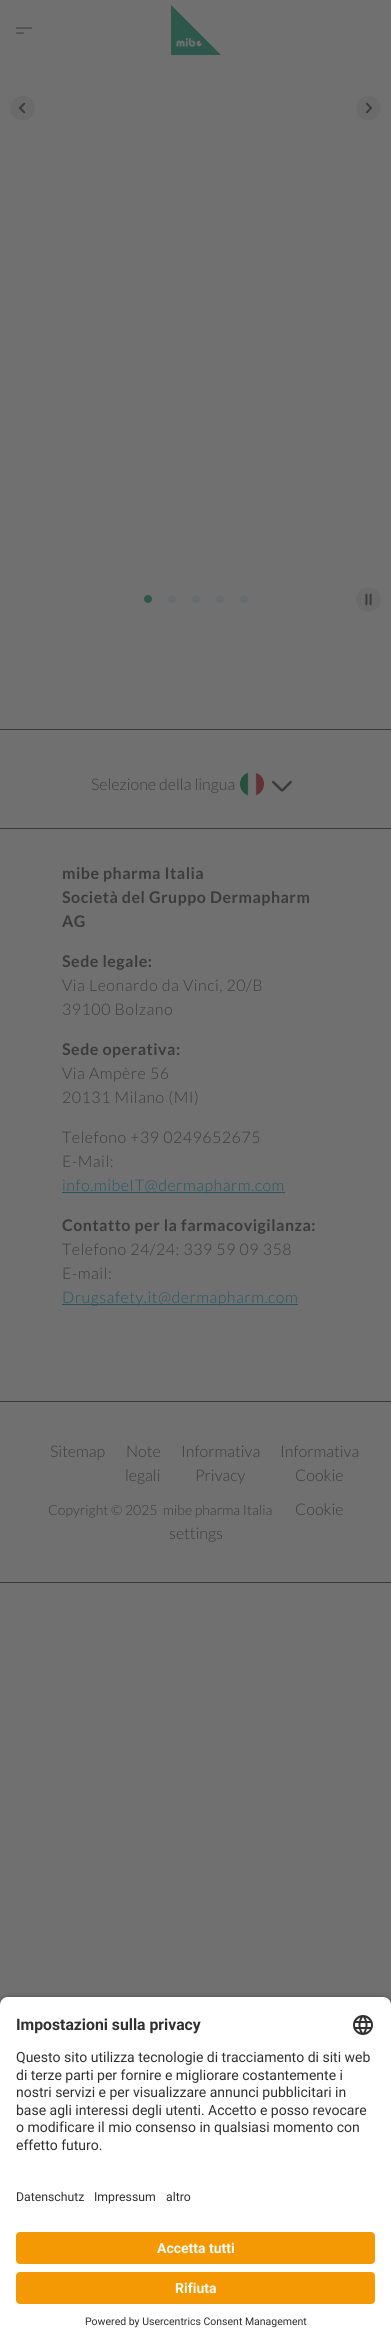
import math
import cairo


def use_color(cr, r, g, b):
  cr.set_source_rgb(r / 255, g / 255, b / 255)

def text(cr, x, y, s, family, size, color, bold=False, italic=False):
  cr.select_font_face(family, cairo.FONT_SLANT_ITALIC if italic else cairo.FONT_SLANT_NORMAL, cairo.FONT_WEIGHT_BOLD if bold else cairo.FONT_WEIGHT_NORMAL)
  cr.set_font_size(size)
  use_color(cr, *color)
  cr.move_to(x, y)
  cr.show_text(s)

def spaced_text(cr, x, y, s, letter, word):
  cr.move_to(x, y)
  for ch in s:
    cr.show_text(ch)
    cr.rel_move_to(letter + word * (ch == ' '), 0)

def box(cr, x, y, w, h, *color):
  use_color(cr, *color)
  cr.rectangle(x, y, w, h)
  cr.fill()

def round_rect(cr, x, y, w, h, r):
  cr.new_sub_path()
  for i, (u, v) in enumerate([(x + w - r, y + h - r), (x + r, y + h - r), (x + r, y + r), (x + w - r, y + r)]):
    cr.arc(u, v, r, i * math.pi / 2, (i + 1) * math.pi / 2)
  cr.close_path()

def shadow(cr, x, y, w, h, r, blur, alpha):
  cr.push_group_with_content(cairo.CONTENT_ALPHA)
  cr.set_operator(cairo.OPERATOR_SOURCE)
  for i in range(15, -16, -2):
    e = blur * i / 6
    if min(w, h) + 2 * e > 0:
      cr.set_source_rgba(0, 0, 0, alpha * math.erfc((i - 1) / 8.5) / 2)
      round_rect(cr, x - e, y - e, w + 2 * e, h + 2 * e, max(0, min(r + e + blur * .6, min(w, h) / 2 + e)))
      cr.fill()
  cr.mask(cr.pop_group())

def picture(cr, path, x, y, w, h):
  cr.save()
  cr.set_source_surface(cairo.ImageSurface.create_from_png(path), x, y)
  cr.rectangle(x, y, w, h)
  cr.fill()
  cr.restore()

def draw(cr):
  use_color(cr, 112, 112, 112)
  cr.paint()
  picture(cr, "img_01.png", 16, 27, 16, 7)
  picture(cr, "img_02.png", 171, 5, 50, 50)
  picture(cr, "img_03.png", 10, 96, 25, 25)
  picture(cr, "img_04.png", 356, 96, 25, 25)
  use_color(cr, 45, 87, 74)
  cr.arc(148, 599, 8, 0, 2 * math.pi)
  cr.fill_preserve()
  use_color(cr, 112, 112, 112)
  cr.set_line_width(8)
  cr.stroke()
  use_color(cr, 104, 107, 110)
  cr.arc(172, 599, 8, 0, 2 * math.pi)
  cr.fill_preserve()
  use_color(cr, 112, 112, 112)
  cr.stroke()
  use_color(cr, 104, 107, 110)
  cr.arc(196, 599, 8, 0, 2 * math.pi)
  cr.fill_preserve()
  use_color(cr, 112, 112, 112)
  cr.stroke()
  use_color(cr, 104, 107, 110)
  cr.arc(220, 599, 8, 0, 2 * math.pi)
  cr.fill_preserve()
  use_color(cr, 112, 112, 112)
  cr.stroke()
  use_color(cr, 104, 107, 110)
  cr.arc(244, 599, 8, 0, 2 * math.pi)
  cr.fill_preserve()
  use_color(cr, 112, 112, 112)
  cr.stroke()
  picture(cr, "img_05.png", 356, 587, 25, 25)
  box(cr, 0, 729, 391, 1, 58, 59, 59)
  box(cr, 0, 828, 391, 1, 58, 59, 59)
  picture(cr, "img_06.png", 240, 772, 24, 24)
  picture(cr, "img_07.png", 272, 780, 20, 12)
  box(cr, 0, 1401, 391, 1, 58, 59, 59)
  box(cr, 62, 1192, 223, 1, 36, 87, 101)
  box(cr, 62, 1304, 236, 1, 36, 87, 101)
  box(cr, 0, 1582, 391, 1, 58, 59, 59)
  use_color(cr, 0, 0, 0)
  shadow(cr, 0, 2000, 391, 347, 8, 3.5, 0.8)
  use_color(cr, 255, 255, 255)
  cr.new_path()
  cr.move_to(8, 1997)
  cr.line_to(383, 1997)
  cr.curve_to(387.5, 1997, 391, 2000.5, 391, 2005)
  cr.line_to(391, 2174)
  cr.line_to(0, 2174)
  cr.line_to(0, 2005)
  cr.curve_to(0, 2000.5, 3.5, 1997, 8, 1997)
  cr.close_path()
  cr.fill()
  picture(cr, "img_08.png", 353, 2015, 20, 20)
  box(cr, 0, 2174, 391, 170, 255, 255, 255)
  use_color(cr, 244, 153, 3)
  round_rect(cr, 16, 2232, 359, 32, 4)
  cr.fill()
  round_rect(cr, 16, 2272, 359, 32, 4)
  cr.fill()
  text(cr, 91, 790, "Selezione della lingua", "Lato Light", 16, (58, 59, 59))
  cr.select_font_face("Lato", cairo.FONT_SLANT_NORMAL, cairo.FONT_WEIGHT_BOLD)
  spaced_text(cr, 62, 879, "mibe pharma Italia", 0.5, 0)
  spaced_text(cr, 62, 903, "Società del Gruppo Dermapharm", 0.5, 0)
  spaced_text(cr, 62, 927, "AG", 0.5, 0)
  spaced_text(cr, 62, 967, "Sede legale:", 0.5, 0)
  cr.select_font_face("Lato Light")
  spaced_text(cr, 62, 991, "Via Leonardo da Vinci, 20/B", 0.5, 0)
  spaced_text(cr, 62, 1015, "39100 Bolzano", 0.5, 0)
  cr.select_font_face("Lato", cairo.FONT_SLANT_NORMAL, cairo.FONT_WEIGHT_BOLD)
  spaced_text(cr, 62, 1055, "Sede operativa:", 0.5, 0)
  cr.select_font_face("Lato Light")
  spaced_text(cr, 62, 1079, "Via Ampère 56", 0.5, 0)
  spaced_text(cr, 62, 1103, "20131 Milano (MI)", 0.5, 0)
  spaced_text(cr, 62, 1143, "Telefono +39 0249652675", 0.5, 0)
  spaced_text(cr, 62, 1167, "E-Mail:", 0.5, 0)
  use_color(cr, 36, 87, 101)
  spaced_text(cr, 62, 1191, "info.mibeIT@dermapharm.com", 0.5, 0)
  cr.select_font_face("Lato", cairo.FONT_SLANT_NORMAL, cairo.FONT_WEIGHT_BOLD)
  use_color(cr, 58, 59, 59)
  spaced_text(cr, 62, 1231, "Contatto per la farmacovigilanza:", 0.5, 0)
  cr.select_font_face("Lato Light")
  spaced_text(cr, 62, 1255, "Telefono 24/24: 339 59 09 358", 0.5, 0)
  spaced_text(cr, 62, 1279, "E-mail:", 0.5, 0)
  use_color(cr, 36, 87, 101)
  spaced_text(cr, 62, 1303, "Drugsafety.it@dermapharm.com", 0.5, 0)
  text(cr, 50, 1457, "Sitemap", "Lato Light", 16, (58, 59, 59))
  text(cr, 126, 1457, "Note", "Lato Light", 16, (58, 59, 59))
  text(cr, 125, 1481, "legali", "Lato Light", 16, (58, 59, 59))
  text(cr, 181, 1457, "Informativa", "Lato Light", 16, (58, 59, 59))
  text(cr, 195, 1481, "Privacy", "Lato Light", 16, (58, 59, 59))
  text(cr, 280, 1457, "Informativa", "Lato Light", 16, (58, 59, 59))
  text(cr, 295, 1481, "Cookie", "Lato Light", 16, (58, 59, 59))
  text(cr, 48, 1515, "Copyright © 2025  mibe pharma Italia", "Lato Light", 14, (58, 59, 59))
  text(cr, 295, 1515, "Cookie", "Lato Light", 16, (58, 59, 59))
  text(cr, 169, 1539, "settings", "Lato Light", 16, (58, 59, 59))
  text(cr, 16, 2030, "Impostazioni sulla privacy", "Roboto", 15.75, (48, 48, 48), bold=True)
  text(cr, 16, 2062, "Questo sito utilizza tecnologie di tracciamento di siti web", "Roboto", 14, (48, 48, 48))
  text(cr, 16, 2080, "di terze parti per fornire e migliorare costantemente i", "Roboto", 14, (48, 48, 48))
  text(cr, 16, 2097, "nostri servizi e per visualizzare annunci pubblicitari in", "Roboto", 14, (48, 48, 48))
  text(cr, 16, 2115, "base agli interessi degli utenti. Accetto e posso revocare", "Roboto", 14, (48, 48, 48))
  text(cr, 16, 2132, "o modificare il mio consenso in qualsiasi momento con", "Roboto", 14, (48, 48, 48))
  text(cr, 16, 2150, "effetto futuro.", "Roboto", 14, (48, 48, 48))
  text(cr, 16, 2201, "Datenschutz", "Roboto", 12.25, (48, 48, 48))
  text(cr, 94, 2201, "Impressum", "Roboto", 12.25, (48, 48, 48))
  text(cr, 166, 2201, "altro", "Roboto", 12.25, (48, 48, 48))
  text(cr, 157, 2253, "Accetta tutti", "Roboto", 14, (250, 250, 250), bold=True)
  text(cr, 175, 2293, "Rifiuta", "Roboto", 14, (250, 250, 250), bold=True)
  text(cr, 85, 2325, "Powered by Usercentrics Consent Management", "Roboto", 10.5, (48, 48, 48))


surface = cairo.ImageSurface(cairo.FORMAT_RGB24, 391, 2344)
cr = cairo.Context(surface)
options = cairo.FontOptions()
options.set_hint_metrics(cairo.HINT_METRICS_OFF)
options.set_hint_style(cairo.HINT_STYLE_NONE)
cr.set_font_options(options)
cr.set_miter_limit(4)
draw(cr)
surface.write_to_png("out.png")
